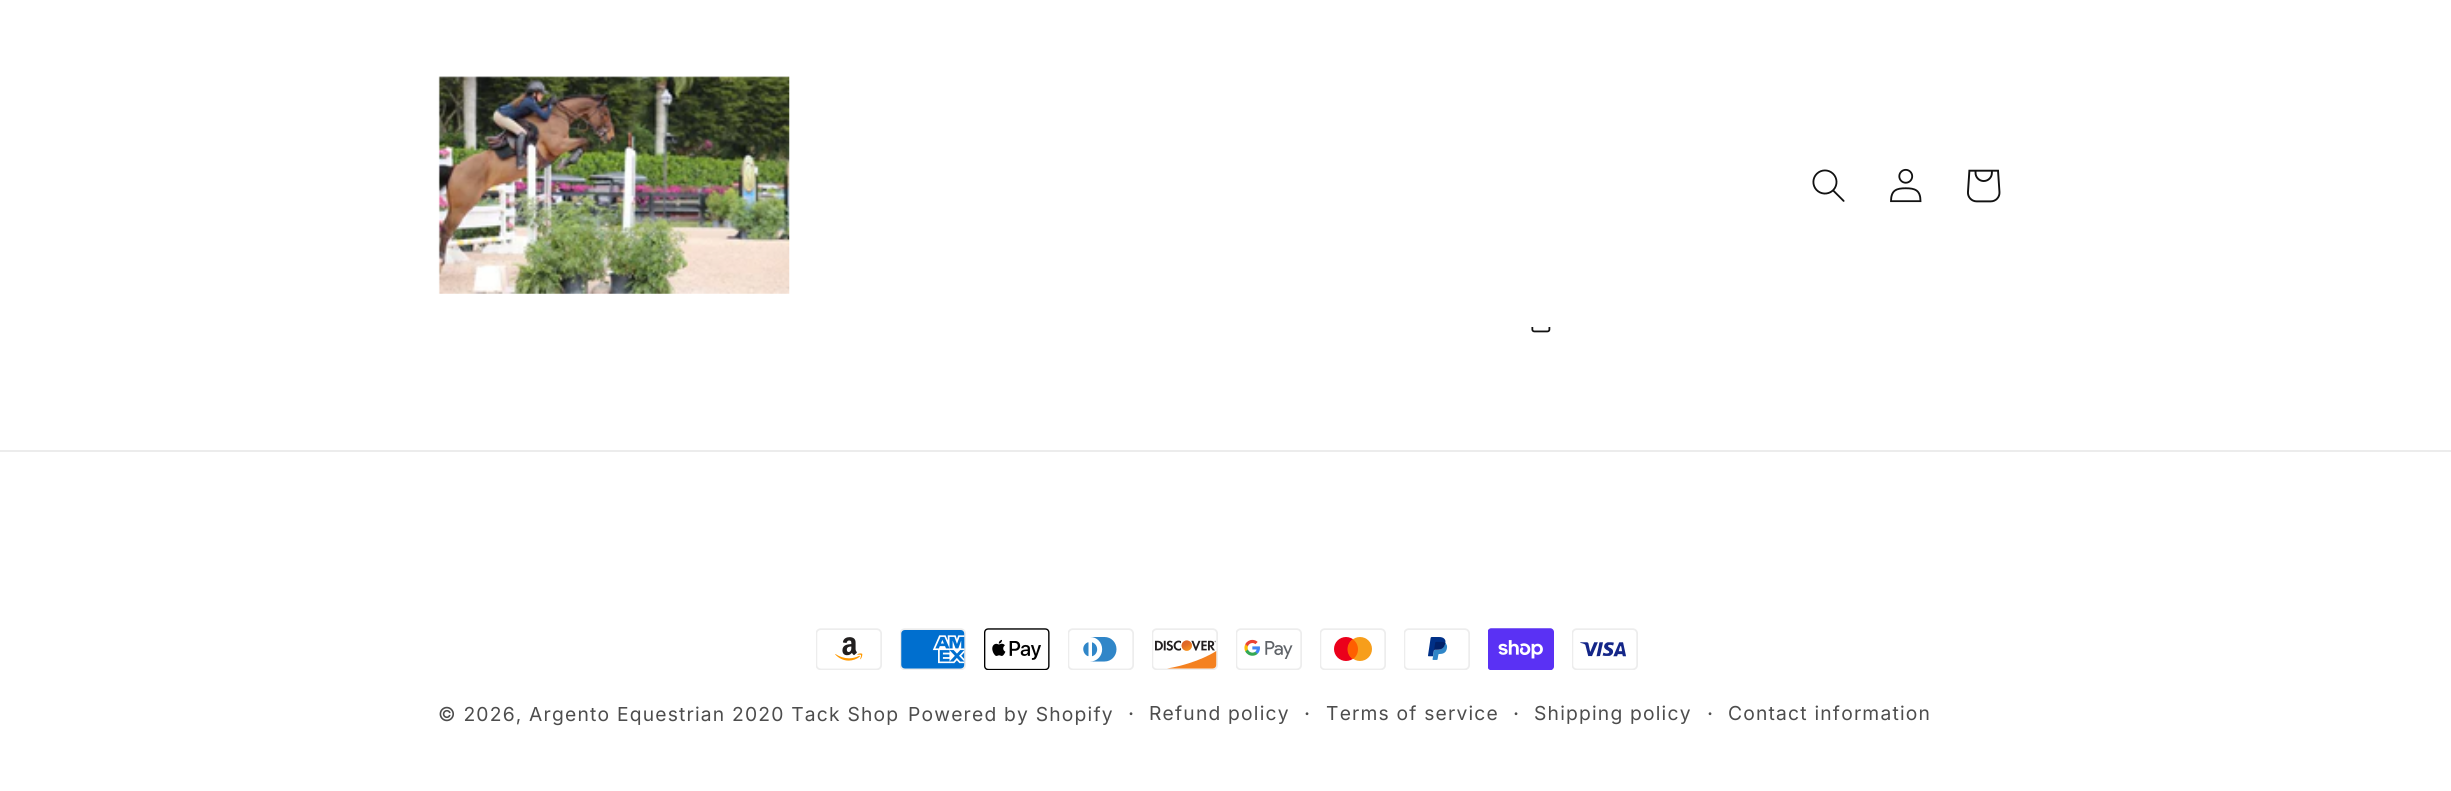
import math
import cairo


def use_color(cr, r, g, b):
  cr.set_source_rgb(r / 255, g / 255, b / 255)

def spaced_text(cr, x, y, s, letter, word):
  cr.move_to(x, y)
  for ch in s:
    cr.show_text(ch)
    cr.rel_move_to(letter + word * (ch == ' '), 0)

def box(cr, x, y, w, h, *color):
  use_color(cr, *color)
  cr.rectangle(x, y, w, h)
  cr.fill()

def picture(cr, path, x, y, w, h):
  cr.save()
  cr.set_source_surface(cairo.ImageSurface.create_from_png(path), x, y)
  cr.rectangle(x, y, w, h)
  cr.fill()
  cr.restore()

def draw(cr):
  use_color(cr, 255, 255, 255)
  cr.paint()
  picture(cr, "img_01.png", 438, 76, 352, 218)
  picture(cr, "img_02.png", 1812, 169, 33, 33)
  picture(cr, "img_03.png", 1890, 168, 32, 35)
  picture(cr, "img_04.png", 1967, 169, 34, 34)
  picture(cr, "img_05.png", 1531, 327, 20, 6)
  box(cr, 0, 450, 2451, 2, 236, 236, 236)
  picture(cr, "img_06.png", 816, 628, 66, 42)
  picture(cr, "img_07.png", 900, 628, 66, 42)
  picture(cr, "img_08.png", 984, 628, 66, 42)
  picture(cr, "img_09.png", 1068, 628, 66, 42)
  picture(cr, "img_10.png", 1152, 628, 66, 42)
  picture(cr, "img_11.png", 1236, 628, 66, 42)
  picture(cr, "img_12.png", 1320, 628, 66, 42)
  picture(cr, "img_13.png", 1404, 628, 66, 42)
  picture(cr, "img_14.png", 1488, 628, 66, 42)
  picture(cr, "img_15.png", 1572, 628, 66, 42)
  cr.select_font_face("Inter")
  cr.set_font_size(19.25)
  use_color(cr, 77, 77, 77)
  spaced_text(cr, 438, 721, "© 2026, Argento Equestrian 2020 Tack Shop", 1.2, 0)
  spaced_text(cr, 908, 721, "Powered by Shopify", 1.2, 0)
  cr.set_font_size(21)
  spaced_text(cr, 1128, 721, "·", 1.2, 0)
  cr.set_font_size(19.25)
  spaced_text(cr, 1149, 720, "Refund policy", 1.2, 0)
  cr.set_font_size(21)
  spaced_text(cr, 1304, 721, "·", 1.2, 0)
  cr.set_font_size(19.25)
  spaced_text(cr, 1326, 720, "Terms of service", 1.2, 0)
  cr.set_font_size(21)
  spaced_text(cr, 1513, 721, "·", 1.2, 0)
  cr.set_font_size(19.25)
  spaced_text(cr, 1534, 720, "Shipping policy", 1.2, 0)
  cr.set_font_size(21)
  spaced_text(cr, 1707, 721, "·", 1.2, 0)
  cr.set_font_size(19.25)
  spaced_text(cr, 1728, 720, "Contact information", 1.2, 0)


surface = cairo.ImageSurface(cairo.FORMAT_RGB24, 2451, 791)
cr = cairo.Context(surface)
options = cairo.FontOptions()
options.set_hint_metrics(cairo.HINT_METRICS_OFF)
options.set_hint_style(cairo.HINT_STYLE_NONE)
cr.set_font_options(options)
cr.set_miter_limit(4)
draw(cr)
surface.write_to_png("out.png")
